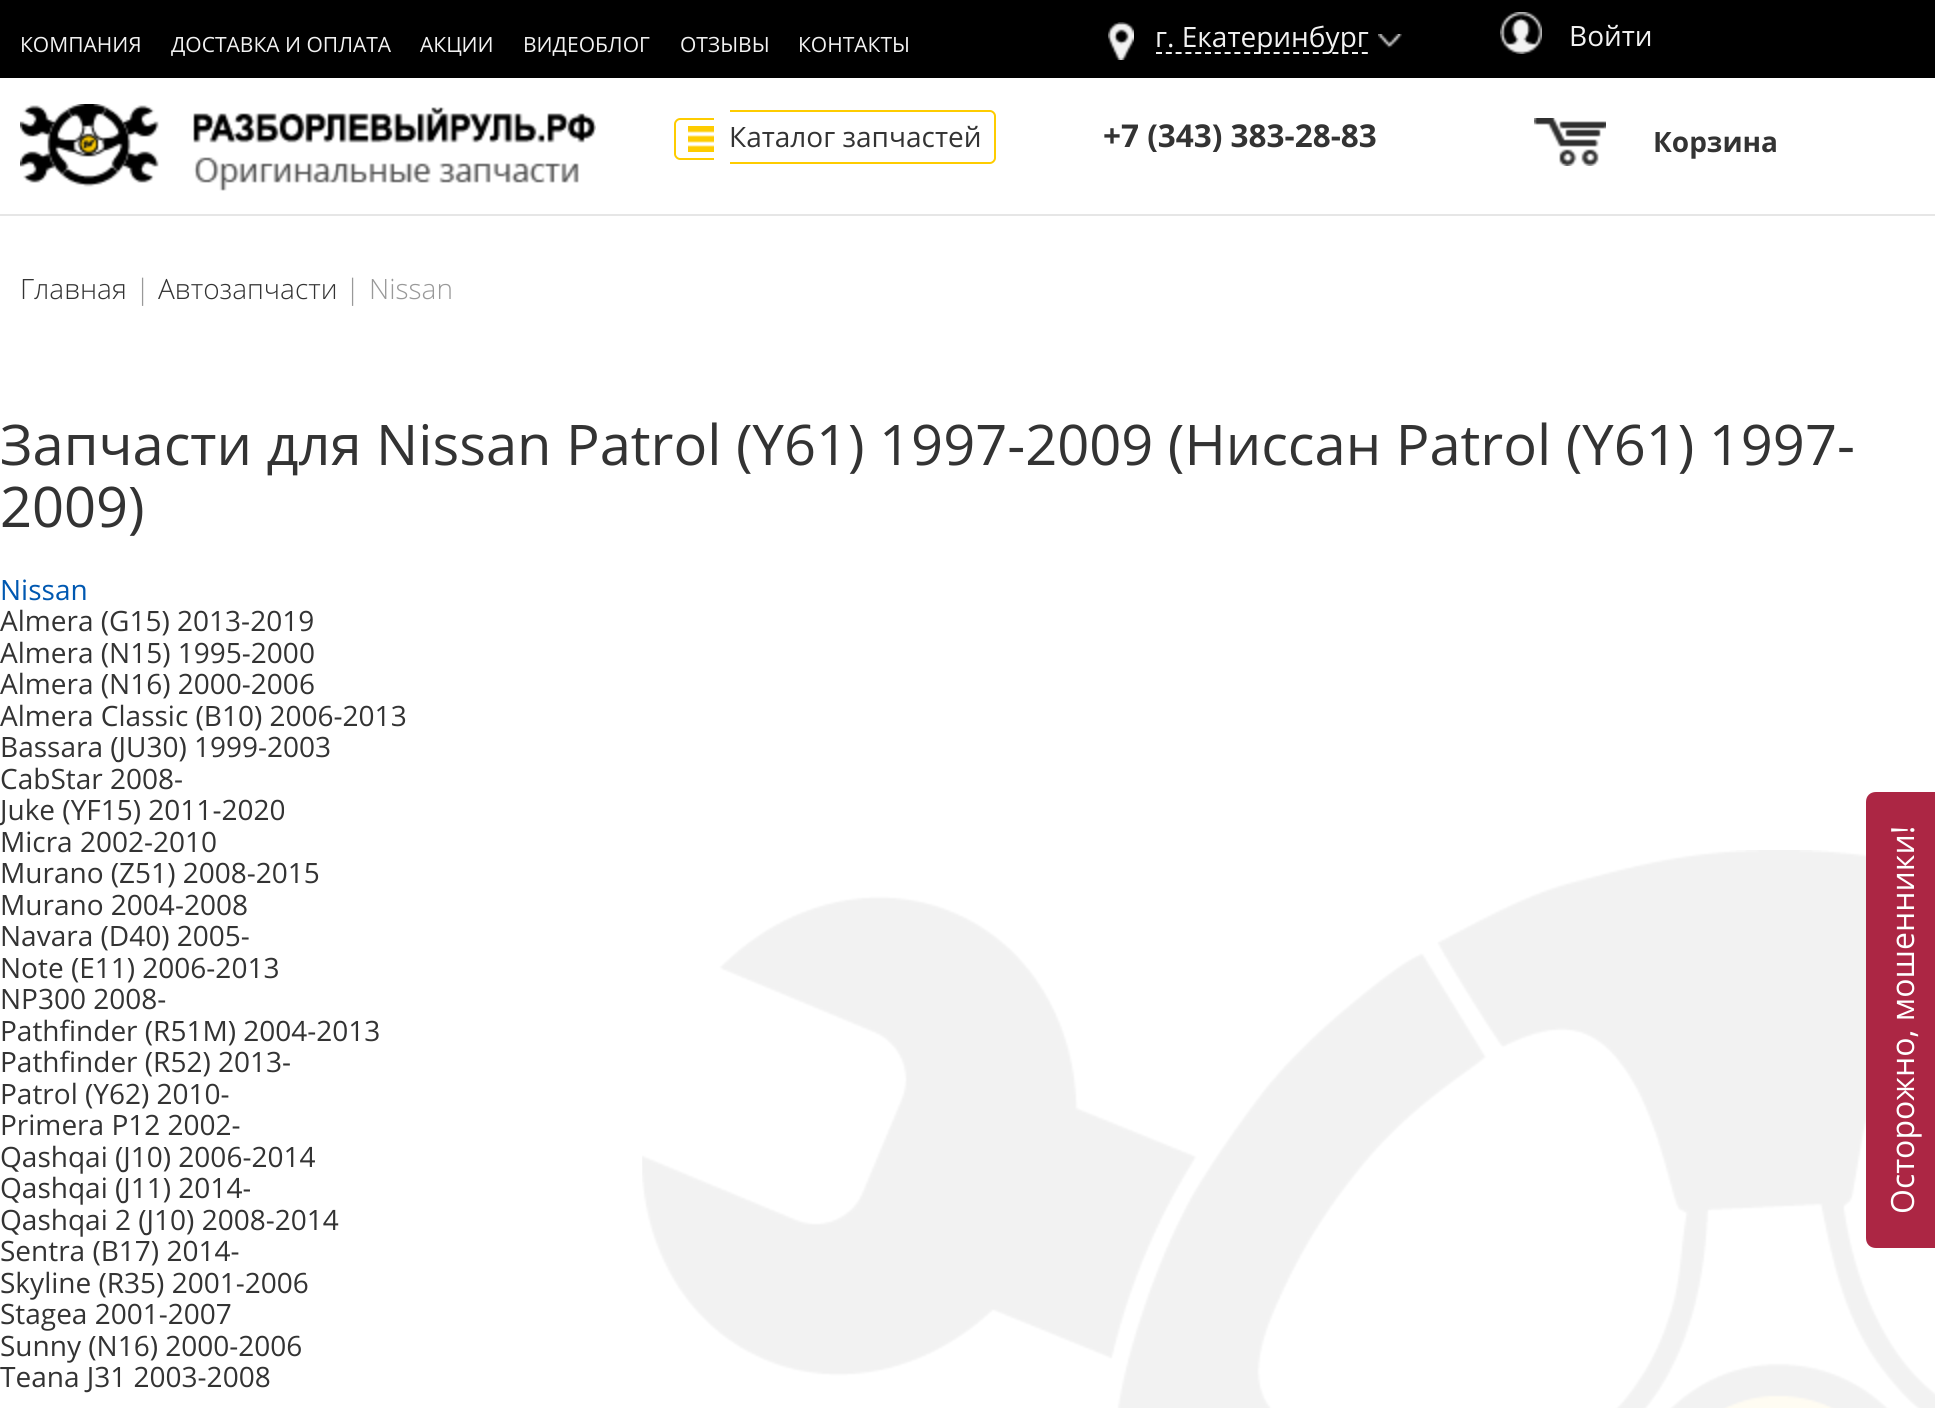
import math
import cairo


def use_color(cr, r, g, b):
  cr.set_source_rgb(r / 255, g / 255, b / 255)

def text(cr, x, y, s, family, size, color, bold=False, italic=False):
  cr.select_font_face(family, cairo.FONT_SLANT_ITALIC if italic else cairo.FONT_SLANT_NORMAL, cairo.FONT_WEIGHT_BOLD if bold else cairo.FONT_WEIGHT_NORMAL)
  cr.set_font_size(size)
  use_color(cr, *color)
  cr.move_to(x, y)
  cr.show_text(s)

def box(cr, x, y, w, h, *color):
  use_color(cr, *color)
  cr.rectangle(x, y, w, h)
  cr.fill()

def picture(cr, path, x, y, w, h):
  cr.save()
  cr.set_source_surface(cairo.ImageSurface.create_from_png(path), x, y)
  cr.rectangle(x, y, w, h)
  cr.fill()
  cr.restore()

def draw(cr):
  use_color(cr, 255, 255, 255)
  cr.paint()
  box(cr, 0, 214, 1935, 2, 230, 230, 230)
  box(cr, 0, 0, 1935, 78, 0, 0, 0)
  picture(cr, "img_01.png", 1108, 22, 26, 38)
  cr.new_path()
  cr.move_to(1156, 53)
  cr.line_to(1368, 53)
  use_color(cr, 242, 242, 242)
  cr.set_dash([6, 3.8])
  cr.stroke()
  picture(cr, "img_02.png", 1378, 34, 24, 14)
  picture(cr, "img_03.png", 1500, 12, 42, 42)
  picture(cr, "img_04.png", 20, 104, 576, 87)
  use_color(cr, 254, 204, 0)
  cr.set_fill_rule(cairo.FILL_RULE_EVEN_ODD)
  cr.new_path()
  cr.move_to(680, 118)
  cr.line_to(714, 118)
  cr.line_to(714, 160)
  cr.line_to(680, 160)
  cr.curve_to(677, 160, 674, 157, 674, 154)
  cr.line_to(674, 124)
  cr.curve_to(674, 121, 677, 118, 680, 118)
  cr.close_path()
  cr.move_to(680, 120)
  cr.line_to(714, 120)
  cr.line_to(714, 158)
  cr.line_to(680, 158)
  cr.curve_to(678, 158, 676, 156, 676, 154)
  cr.line_to(676, 124)
  cr.curve_to(676, 122, 678, 120, 680, 120)
  cr.close_path()
  cr.fill()
  cr.new_path()
  cr.move_to(730, 110)
  cr.line_to(990, 110)
  cr.curve_to(993, 110, 996, 113, 996, 116)
  cr.line_to(996, 158)
  cr.curve_to(996, 161, 993, 164, 990, 164)
  cr.line_to(730, 164)
  cr.close_path()
  cr.move_to(730, 112)
  cr.line_to(990, 112)
  cr.curve_to(992, 112, 994, 114, 994, 116)
  cr.line_to(994, 158)
  cr.curve_to(994, 160, 992, 162, 990, 162)
  cr.line_to(730, 162)
  cr.close_path()
  cr.fill()
  picture(cr, "img_05.png", 688, 126, 26, 26)
  picture(cr, "img_06.png", 1534, 118, 72, 48)
  picture(cr, "img_07.png", 642, 850, 1293, 558)
  use_color(cr, 172, 38, 68)
  cr.set_fill_rule(cairo.FILL_RULE_WINDING)
  cr.new_path()
  cr.move_to(1866, 1238)
  cr.line_to(1866, 802)
  cr.curve_to(1866, 796, 1870, 792, 1876, 792)
  cr.line_to(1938, 792)
  cr.line_to(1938, 1248)
  cr.line_to(1876, 1248)
  cr.curve_to(1870, 1248, 1866, 1244, 1866, 1238)
  cr.close_path()
  cr.fill()
  text(cr, 20, 52, "КОМПАНИЯ", "Open Sans", 21, (242, 242, 242))
  text(cr, 171, 52, "ДОСТАВКА И ОПЛАТА", "Open Sans", 21, (242, 242, 242))
  text(cr, 420, 52, "АКЦИИ", "Open Sans", 21, (242, 242, 242))
  text(cr, 523, 52, "ВИДЕОБЛОГ", "Open Sans", 21, (242, 242, 242))
  text(cr, 680, 52, "ОТЗЫВЫ", "Open Sans", 21, (242, 242, 242))
  text(cr, 798, 52, "КОНТАКТЫ", "Open Sans", 21, (242, 242, 242))
  text(cr, 1155, 47, "г. Екатеринбург", "Open Sans", 28, (242, 242, 242))
  text(cr, 1569, 46, "Войти", "Open Sans", 28, (242, 242, 242))
  text(cr, 729, 147, "Каталог запчастей", "Open Sans", 28, (51, 51, 51))
  text(cr, 1103, 147, "+7 (343) 383-28-83", "Open Sans", 31.5, (51, 51, 51), bold=True)
  text(cr, 1653, 152, "Корзина", "Open Sans", 28, (51, 51, 51), bold=True)
  text(cr, 20, 299, "Главная", "Open Sans Light", 28, (51, 51, 51))
  text(cr, 135, 299, "|", "Open Sans Light", 28, (153, 153, 153))
  text(cr, 158, 299, "Автозапчасти", "Open Sans Light", 28, (51, 51, 51))
  text(cr, 345, 299, "|", "Open Sans Light", 28, (153, 153, 153))
  text(cr, 369, 299, "Nissan", "Open Sans Light", 28, (153, 153, 153))
  text(cr, 0, 465, "Запчасти для Nissan Patrol (Y61) 1997-2009 (Ниссан Patrol (Y61) 1997-", "Open Sans", 56, (51, 51, 51))
  text(cr, 0, 527, "2009)", "Open Sans", 56, (51, 51, 51))
  text(cr, 0, 600, "Nissan", "Open Sans", 28, (0, 88, 177))
  text(cr, 0, 631, "Almera (G15) 2013-2019", "Open Sans", 28, (51, 51, 51))
  text(cr, 0, 663, "Almera (N15) 1995-2000", "Open Sans", 28, (51, 51, 51))
  text(cr, 0, 694, "Almera (N16) 2000-2006", "Open Sans", 28, (51, 51, 51))
  text(cr, 0, 726, "Almera Classic (B10) 2006-2013", "Open Sans", 28, (51, 51, 51))
  text(cr, 0, 757, "Bassara (JU30) 1999-2003", "Open Sans", 28, (51, 51, 51))
  text(cr, 0, 789, "CabStar 2008-", "Open Sans", 28, (51, 51, 51))
  text(cr, 0, 820, "Juke (YF15) 2011-2020", "Open Sans", 28, (51, 51, 51))
  text(cr, 0, 852, "Micra 2002-2010", "Open Sans", 28, (51, 51, 51))
  text(cr, 0, 883, "Murano (Z51) 2008-2015", "Open Sans", 28, (51, 51, 51))
  text(cr, 0, 915, "Murano 2004-2008", "Open Sans", 28, (51, 51, 51))
  text(cr, 0, 946, "Navara (D40) 2005-", "Open Sans", 28, (51, 51, 51))
  text(cr, 0, 978, "Note (E11) 2006-2013", "Open Sans", 28, (51, 51, 51))
  text(cr, 0, 1009, "NP300 2008-", "Open Sans", 28, (51, 51, 51))
  text(cr, 0, 1041, "Pathfinder (R51M) 2004-2013", "Open Sans", 28, (51, 51, 51))
  text(cr, 0, 1072, "Pathfinder (R52) 2013-", "Open Sans", 28, (51, 51, 51))
  text(cr, 0, 1104, "Patrol (Y62) 2010-", "Open Sans", 28, (51, 51, 51))
  text(cr, 0, 1135, "Primera P12 2002-", "Open Sans", 28, (51, 51, 51))
  text(cr, 0, 1167, "Qashqai (J10) 2006-2014", "Open Sans", 28, (51, 51, 51))
  text(cr, 0, 1198, "Qashqai (J11) 2014-", "Open Sans", 28, (51, 51, 51))
  text(cr, 0, 1230, "Qashqai 2 (J10) 2008-2014", "Open Sans", 28, (51, 51, 51))
  text(cr, 0, 1261, "Sentra (B17) 2014-", "Open Sans", 28, (51, 51, 51))
  text(cr, 0, 1293, "Skyline (R35) 2001-2006", "Open Sans", 28, (51, 51, 51))
  text(cr, 0, 1324, "Stagea 2001-2007", "Open Sans", 28, (51, 51, 51))
  text(cr, 0, 1356, "Sunny (N16) 2000-2006", "Open Sans", 28, (51, 51, 51))
  text(cr, 0, 1387, "Teana J31 2003-2008", "Open Sans", 28, (51, 51, 51))
  cr.save()
  cr.translate(1914, 1214)
  cr.rotate(-90 * math.pi / 180)
  text(cr, 0, 0, "Осторожно, мошенники!", "Open Sans", 32, (255, 255, 255))
  cr.restore()


surface = cairo.ImageSurface(cairo.FORMAT_RGB24, 1935, 1408)
cr = cairo.Context(surface)
options = cairo.FontOptions()
options.set_hint_metrics(cairo.HINT_METRICS_OFF)
options.set_hint_style(cairo.HINT_STYLE_NONE)
cr.set_font_options(options)
cr.set_miter_limit(4)
draw(cr)
surface.write_to_png("out.png")
